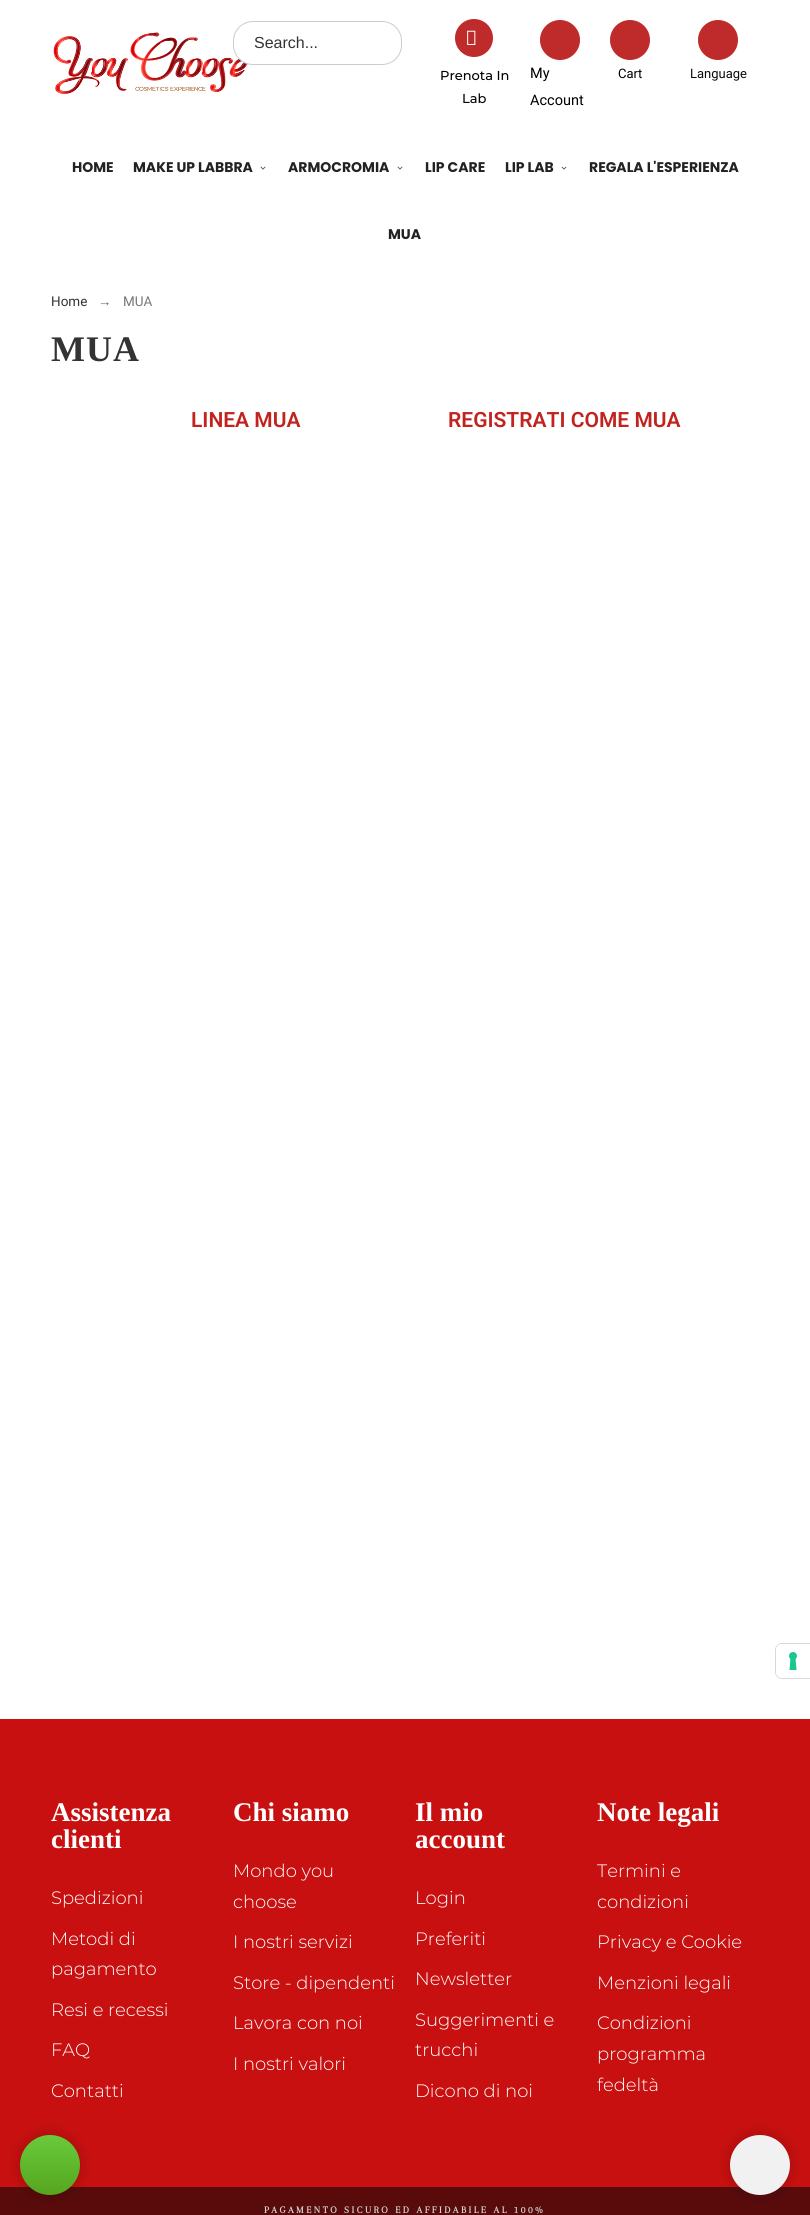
import math
import cairo


def use_color(cr, r, g, b):
  cr.set_source_rgb(r / 255, g / 255, b / 255)

def text(cr, x, y, s, family, size, color, bold=False, italic=False):
  cr.select_font_face(family, cairo.FONT_SLANT_ITALIC if italic else cairo.FONT_SLANT_NORMAL, cairo.FONT_WEIGHT_BOLD if bold else cairo.FONT_WEIGHT_NORMAL)
  cr.set_font_size(size)
  use_color(cr, *color)
  cr.move_to(x, y)
  cr.show_text(s)

def spaced_text(cr, x, y, s, letter, word):
  cr.move_to(x, y)
  for ch in s:
    cr.show_text(ch)
    cr.rel_move_to(letter + word * (ch == ' '), 0)

def box(cr, x, y, w, h, *color):
  use_color(cr, *color)
  cr.rectangle(x, y, w, h)
  cr.fill()

def round_rect(cr, x, y, w, h, r):
  cr.new_sub_path()
  for i, (u, v) in enumerate([(x + w - r, y + h - r), (x + r, y + h - r), (x + r, y + r), (x + w - r, y + r)]):
    cr.arc(u, v, r, i * math.pi / 2, (i + 1) * math.pi / 2)
  cr.close_path()

def shadow(cr, x, y, w, h, r, blur, alpha):
  cr.push_group_with_content(cairo.CONTENT_ALPHA)
  cr.set_operator(cairo.OPERATOR_SOURCE)
  for i in range(15, -16, -2):
    e = blur * i / 6
    if min(w, h) + 2 * e > 0:
      cr.set_source_rgba(0, 0, 0, alpha * math.erfc((i - 1) / 8.5) / 2)
      round_rect(cr, x - e, y - e, w + 2 * e, h + 2 * e, max(0, min(r + e + blur * .6, min(w, h) / 2 + e)))
      cr.fill()
  cr.mask(cr.pop_group())

def picture(cr, path, x, y, w, h):
  cr.save()
  cr.set_source_surface(cairo.ImageSurface.create_from_png(path), x, y)
  cr.rectangle(x, y, w, h)
  cr.fill()
  cr.restore()

def draw(cr):
  use_color(cr, 255, 255, 255)
  cr.paint()
  picture(cr, "img_01.png", 53, 32, 195, 62)
  use_color(cr, 255, 255, 255)
  round_rect(cr, 233.5, 21.5, 168, 43, 19.5)
  cr.fill_preserve()
  use_color(cr, 204, 204, 204)
  cr.set_line_width(1)
  cr.stroke()
  use_color(cr, 191, 42, 42)
  cr.arc(474, 38, 19, 0, 2 * math.pi)
  cr.fill()
  picture(cr, "img_02.png", 467, 30, 9, 15)
  cr.arc(560, 40, 20, 0, 2 * math.pi)
  cr.fill()
  cr.arc(630, 40, 20, 0, 2 * math.pi)
  cr.fill()
  cr.arc(718, 40, 20, 0, 2 * math.pi)
  cr.fill()
  picture(cr, "img_03.png", 260, 166, 6, 4)
  picture(cr, "img_03.png", 397, 166, 6, 4)
  picture(cr, "img_03.png", 561, 166, 6, 4)
  cr.new_path()
  cr.move_to(782, 1643.5)
  cr.line_to(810.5, 1643.5)
  cr.line_to(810.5, 1678.5)
  cr.line_to(782, 1678.5)
  cr.curve_to(778.5, 1678.5, 775.5, 1675.5, 775.5, 1672)
  cr.line_to(775.5, 1650)
  cr.curve_to(775.5, 1646.5, 778.5, 1643.5, 782, 1643.5)
  cr.close_path()
  use_color(cr, 217, 217, 217)
  cr.stroke()
  use_color(cr, 255, 255, 255)
  cr.new_path()
  cr.move_to(782, 1644)
  cr.line_to(810, 1644)
  cr.line_to(810, 1678)
  cr.line_to(782, 1678)
  cr.curve_to(778.5, 1678, 776, 1675.5, 776, 1672)
  cr.line_to(776, 1650)
  cr.curve_to(776, 1646.5, 778.5, 1644, 782, 1644)
  cr.close_path()
  cr.fill()
  picture(cr, "img_04.png", 789, 1652, 8, 18)
  box(cr, 0, 1719, 810, 468, 201, 16, 16)
  box(cr, 0, 2187, 810, 28, 89, 11, 11)
  use_color(cr, 0, 0, 0)
  shadow(cr, 20, 2135, 60, 60, 30, 7.5, 0.22)
  gradient = cairo.LinearGradient(50, 2135, 50, 2195)
  gradient.add_color_stop_rgba(0, 0.412, 0.792, 0.231, 1)
  gradient.add_color_stop_rgba(1, 0.337, 0.651, 0.118, 1)
  cr.set_source(gradient)
  cr.arc(50, 2165, 30, 0, 2 * math.pi)
  cr.fill()
  use_color(cr, 0, 0, 0)
  shadow(cr, 730, 2135, 60, 60, 30, 7.5, 0.22)
  use_color(cr, 241, 241, 241)
  cr.arc(760, 2165, 30, 0, 2 * math.pi)
  cr.fill()
  text(cr, 254, 48, "Search...", "Liberation Sans", 16, (51, 51, 51))
  text(cr, 440, 80, "Prenota In", "Montserrat Medium", 13, (0, 0, 0))
  text(cr, 462, 103, "Lab", "Montserrat Medium", 13, (0, 0, 0))
  text(cr, 530, 78, "My", "Roboto", 14.5, (0, 0, 0))
  text(cr, 530, 105, "Account", "Roboto", 14.5, (0, 0, 0))
  text(cr, 618, 78, "Cart", "Roboto", 13, (0, 0, 0))
  text(cr, 690, 78, "Language", "Roboto", 13, (12, 12, 12))
  text(cr, 72, 172, "HOME", "Poppins", 14, (34, 34, 34), bold=True)
  text(cr, 133, 172, "MAKE UP LABBRA", "Poppins", 14, (34, 34, 34), bold=True)
  text(cr, 288, 172, "ARMOCROMIA", "Poppins", 14, (34, 34, 34), bold=True)
  text(cr, 425, 172, "LIP CARE", "Poppins", 14, (34, 34, 34), bold=True)
  text(cr, 505, 172, "LIP LAB", "Poppins", 14, (34, 34, 34), bold=True)
  text(cr, 589, 172, "REGALA L'ESPERIENZA", "Poppins", 14, (34, 34, 34), bold=True)
  text(cr, 388, 239, "MUA", "Poppins", 14, (34, 34, 34), bold=True)
  text(cr, 51, 306, "Home", "Roboto", 13.5, (51, 51, 51))
  text(cr, 98, 306, "→", "Liberation Serif", 13.5, (102, 102, 102))
  text(cr, 123, 306, "MUA", "Roboto", 13.5, (119, 119, 119))
  cr.select_font_face("Tinos", cairo.FONT_SLANT_NORMAL, cairo.FONT_WEIGHT_BOLD)
  cr.set_font_size(36)
  use_color(cr, 51, 51, 51)
  spaced_text(cr, 51, 361, "MUA", 1, 0)
  text(cr, 191, 427, "LINEA MUA", "Roboto SemiBold", 21, (193, 36, 31))
  text(cr, 448, 427, "REGISTRATI COME MUA", "Roboto SemiBold", 21, (193, 36, 31))
  text(cr, 51, 1821, "Assistenza", "Tinos", 27, (255, 255, 255), bold=True)
  text(cr, 51, 1848, "clienti", "Tinos", 27, (255, 255, 255), bold=True)
  text(cr, 51, 1904, "Spedizioni", "Montserrat Light", 18, (255, 255, 255))
  text(cr, 51, 1945, "Metodi di", "Montserrat Light", 18, (255, 255, 255))
  text(cr, 51, 1975, "pagamento", "Montserrat Light", 18, (255, 255, 255))
  text(cr, 51, 2016, "Resi e recessi", "Montserrat Light", 18, (255, 255, 255))
  text(cr, 51, 2056, "FAQ", "Montserrat Light", 18, (255, 255, 255))
  text(cr, 51, 2097, "Contatti", "Montserrat Light", 18, (255, 255, 255))
  text(cr, 233, 1821, "Chi siamo", "Tinos", 27, (255, 255, 255), bold=True)
  text(cr, 233, 1877, "Mondo you", "Montserrat Light", 18, (255, 255, 255))
  text(cr, 233, 1908, "choose", "Montserrat Light", 18, (255, 255, 255))
  text(cr, 233, 1948, "I nostri servizi", "Montserrat Light", 18, (255, 255, 255))
  text(cr, 233, 1989, "Store - dipendenti", "Montserrat Light", 18, (255, 255, 255))
  text(cr, 233, 2029, "Lavora con noi", "Montserrat Light", 18, (255, 255, 255))
  text(cr, 233, 2070, "I nostri valori", "Montserrat Light", 18, (255, 255, 255))
  text(cr, 415, 1821, "Il mio", "Tinos", 27, (255, 255, 255), bold=True)
  text(cr, 415, 1848, "account", "Tinos", 27, (255, 255, 255), bold=True)
  text(cr, 415, 1904, "Login", "Montserrat Light", 18, (255, 255, 255))
  text(cr, 415, 1945, "Preferiti", "Montserrat Light", 18, (255, 255, 255))
  text(cr, 415, 1985, "Newsletter", "Montserrat Light", 18, (255, 255, 255))
  text(cr, 415, 2026, "Suggerimenti e", "Montserrat Light", 18, (255, 255, 255))
  text(cr, 415, 2056, "trucchi", "Montserrat Light", 18, (255, 255, 255))
  text(cr, 415, 2097, "Dicono di noi", "Montserrat Light", 18, (255, 255, 255))
  text(cr, 597, 1821, "Note legali", "Tinos", 27, (255, 255, 255), bold=True)
  text(cr, 597, 1877, "Termini e", "Montserrat Light", 18, (255, 255, 255))
  text(cr, 597, 1908, "condizioni", "Montserrat Light", 18, (255, 255, 255))
  text(cr, 597, 1948, "Privacy e Cookie", "Montserrat Light", 18, (255, 255, 255))
  text(cr, 597, 1989, "Menzioni legali", "Montserrat Light", 18, (255, 255, 255))
  text(cr, 597, 2029, "Condizioni", "Montserrat Light", 18, (255, 255, 255))
  text(cr, 597, 2060, "programma", "Montserrat Light", 18, (255, 255, 255))
  text(cr, 597, 2091, "fedeltà", "Montserrat Light", 18, (255, 255, 255))
  cr.select_font_face("Arapey", cairo.FONT_SLANT_NORMAL, cairo.FONT_WEIGHT_BOLD)
  cr.set_font_size(10)
  use_color(cr, 212, 212, 212)
  spaced_text(cr, 264, 2213, "PAGAMENTO SICURO ED AFFIDABILE AL 100%", 2.5, 0)


surface = cairo.ImageSurface(cairo.FORMAT_RGB24, 810, 2215)
cr = cairo.Context(surface)
options = cairo.FontOptions()
options.set_hint_metrics(cairo.HINT_METRICS_OFF)
options.set_hint_style(cairo.HINT_STYLE_NONE)
cr.set_font_options(options)
cr.set_miter_limit(4)
draw(cr)
surface.write_to_png("out.png")
